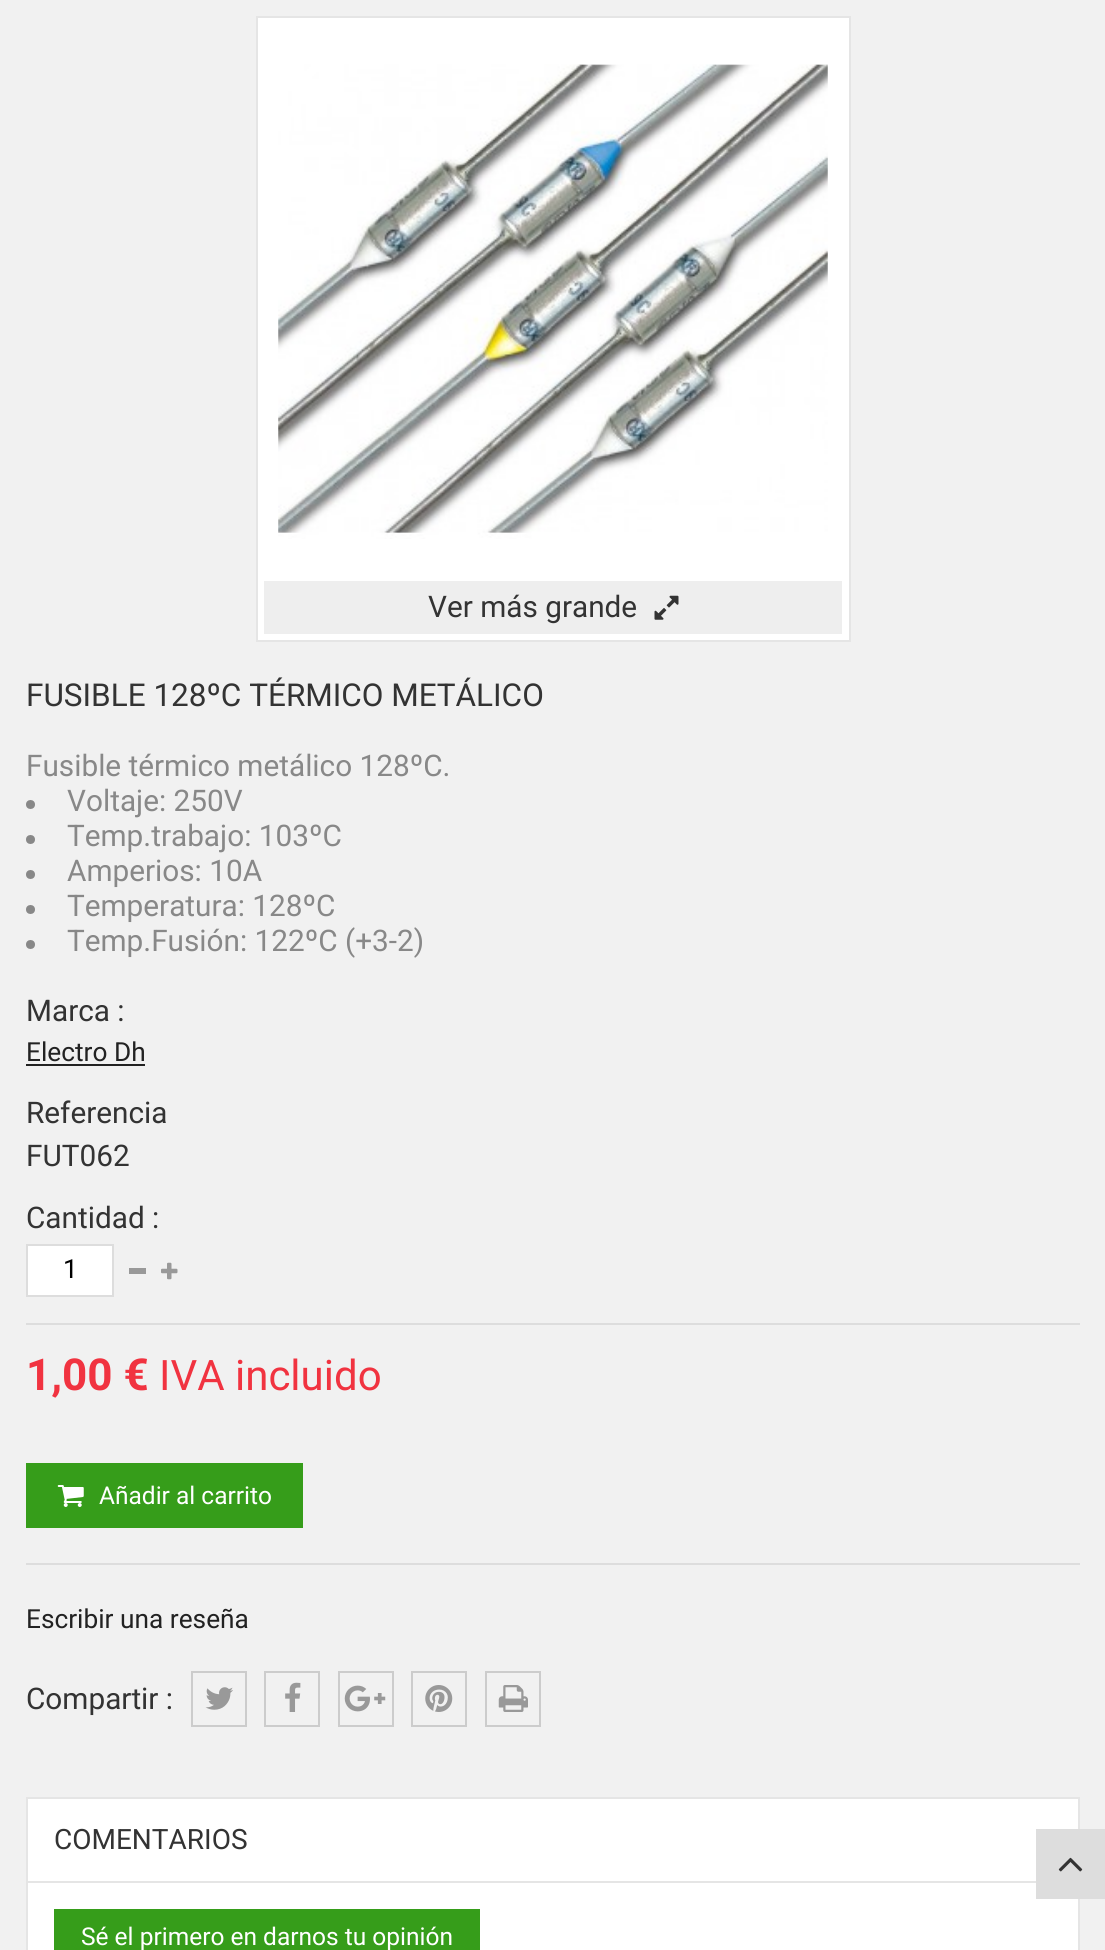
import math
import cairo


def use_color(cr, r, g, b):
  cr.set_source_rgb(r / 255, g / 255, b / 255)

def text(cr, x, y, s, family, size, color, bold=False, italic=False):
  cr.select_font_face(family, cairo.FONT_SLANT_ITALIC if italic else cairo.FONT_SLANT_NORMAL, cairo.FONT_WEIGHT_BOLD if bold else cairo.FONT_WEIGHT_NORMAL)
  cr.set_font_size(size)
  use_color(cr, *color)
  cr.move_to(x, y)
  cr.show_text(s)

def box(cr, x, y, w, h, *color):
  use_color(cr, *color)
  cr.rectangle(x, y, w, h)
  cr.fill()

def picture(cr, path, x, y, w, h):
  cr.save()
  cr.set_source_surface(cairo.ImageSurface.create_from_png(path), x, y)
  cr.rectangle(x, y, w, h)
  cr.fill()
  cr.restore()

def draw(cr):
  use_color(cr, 241, 241, 241)
  cr.paint()
  use_color(cr, 255, 255, 255)
  cr.rectangle(257, 17, 593, 624)
  cr.fill_preserve()
  use_color(cr, 229, 229, 229)
  cr.stroke()
  picture(cr, "img_01.png", 278, 64, 550, 475)
  box(cr, 264, 581, 578, 53, 238, 238, 238)
  picture(cr, "img_02.png", 654, 595, 25, 25)
  use_color(cr, 136, 136, 136)
  cr.arc(30.5, 804.5, 4.5, 0, 2 * math.pi)
  cr.fill()
  cr.arc(30.5, 839.5, 4.5, 0, 2 * math.pi)
  cr.fill()
  cr.arc(30.5, 874.5, 4.5, 0, 2 * math.pi)
  cr.fill()
  cr.arc(30.5, 909.5, 4.5, 0, 2 * math.pi)
  cr.fill()
  cr.arc(30.5, 944.5, 4.5, 0, 2 * math.pi)
  cr.fill()
  box(cr, 26, 1064, 119, 2, 34, 34, 34)
  use_color(cr, 255, 255, 255)
  cr.rectangle(27, 1245, 86, 51)
  cr.fill_preserve()
  use_color(cr, 221, 221, 221)
  cr.stroke()
  box(cr, 129, 1268, 17, 6, 153, 153, 153)
  picture(cr, "img_03.png", 161, 1262, 17, 18)
  box(cr, 26, 1323, 1054, 2, 221, 221, 221)
  box(cr, 26, 1563, 1054, 2, 221, 221, 221)
  box(cr, 26, 1463, 277, 65, 54, 157, 26)
  picture(cr, "img_04.png", 57, 1485, 27, 22)
  cr.rectangle(192, 1672, 54, 54)
  use_color(cr, 204, 204, 204)
  cr.stroke()
  picture(cr, "img_05.png", 205, 1687, 28, 23)
  cr.rectangle(265, 1672, 54, 54)
  cr.stroke()
  picture(cr, "img_06.png", 285, 1682, 16, 30)
  cr.rectangle(339, 1672, 54, 54)
  cr.stroke()
  picture(cr, "img_07.png", 344, 1685, 42, 27)
  cr.rectangle(412, 1672, 54, 54)
  cr.stroke()
  picture(cr, "img_08.png", 425, 1685, 28, 27)
  cr.rectangle(486, 1672, 54, 54)
  cr.stroke()
  picture(cr, "img_09.png", 498, 1685, 30, 27)
  use_color(cr, 255, 255, 255)
  cr.rectangle(27, 1798, 1052, 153)
  cr.fill_preserve()
  use_color(cr, 229, 229, 229)
  cr.stroke()
  box(cr, 28, 1881, 1008, 2, 229, 229, 229)
  box(cr, 54, 1909, 426, 41, 54, 157, 26)
  box(cr, 1036, 1829, 69, 70, 221, 221, 221)
  picture(cr, "img_10.png", 1058, 1857, 25, 15)
  text(cr, 428, 617, "Ver más grande", "Roboto", 29.75, (51, 51, 51))
  text(cr, 26, 706, "FUSIBLE 128ºC TÉRMICO METÁLICO", "Roboto", 31.5, (51, 51, 51))
  text(cr, 26, 776, "Fusible térmico metálico 128ºC.", "Roboto", 29.75, (136, 136, 136))
  text(cr, 67, 811, "Voltaje: 250V", "Roboto", 29.75, (136, 136, 136))
  text(cr, 67, 846, "Temp.trabajo: 103ºC", "Roboto", 29.75, (136, 136, 136))
  text(cr, 67, 881, "Amperios: 10A", "Roboto", 29.75, (136, 136, 136))
  text(cr, 67, 916, "Temperatura: 128ºC", "Roboto", 29.75, (136, 136, 136))
  text(cr, 67, 951, "Temp.Fusión: 122ºC (+3-2)", "Roboto", 29.75, (136, 136, 136))
  text(cr, 26, 1021, "Marca :", "Roboto", 29.75, (51, 51, 51))
  text(cr, 26, 1061, "Electro Dh", "Roboto", 26.25, (34, 34, 34))
  text(cr, 26, 1123, "Referencia", "Roboto", 29.75, (51, 51, 51))
  text(cr, 26, 1166, "FUT062", "Roboto", 29.75, (51, 51, 51))
  text(cr, 26, 1228, "Cantidad :", "Roboto", 29.75, (51, 51, 51))
  text(cr, 63, 1278, "1", "Roboto", 26.25, (0, 0, 0))
  text(cr, 26, 1390, "1,00 €", "Roboto", 44, (241, 51, 64), bold=True)
  text(cr, 159, 1390, "IVA incluido", "Roboto", 42, (241, 51, 64))
  text(cr, 99, 1504, "Añadir al carrito", "Roboto", 24.5, (255, 255, 255))
  text(cr, 26, 1628, "Escribir una reseña", "Roboto", 26.25, (34, 34, 34))
  text(cr, 26, 1709, "Compartir :", "Roboto", 29.75, (51, 51, 51))
  text(cr, 54, 1849, "COMENTARIOS", "Roboto", 28, (51, 51, 51))
  text(cr, 81, 1945, "Sé el primero en darnos tu opinión", "Roboto", 24.5, (255, 255, 255))


surface = cairo.ImageSurface(cairo.FORMAT_RGB24, 1105, 1950)
cr = cairo.Context(surface)
options = cairo.FontOptions()
options.set_hint_metrics(cairo.HINT_METRICS_OFF)
options.set_hint_style(cairo.HINT_STYLE_NONE)
cr.set_font_options(options)
cr.set_miter_limit(4)
draw(cr)
surface.write_to_png("out.png")
